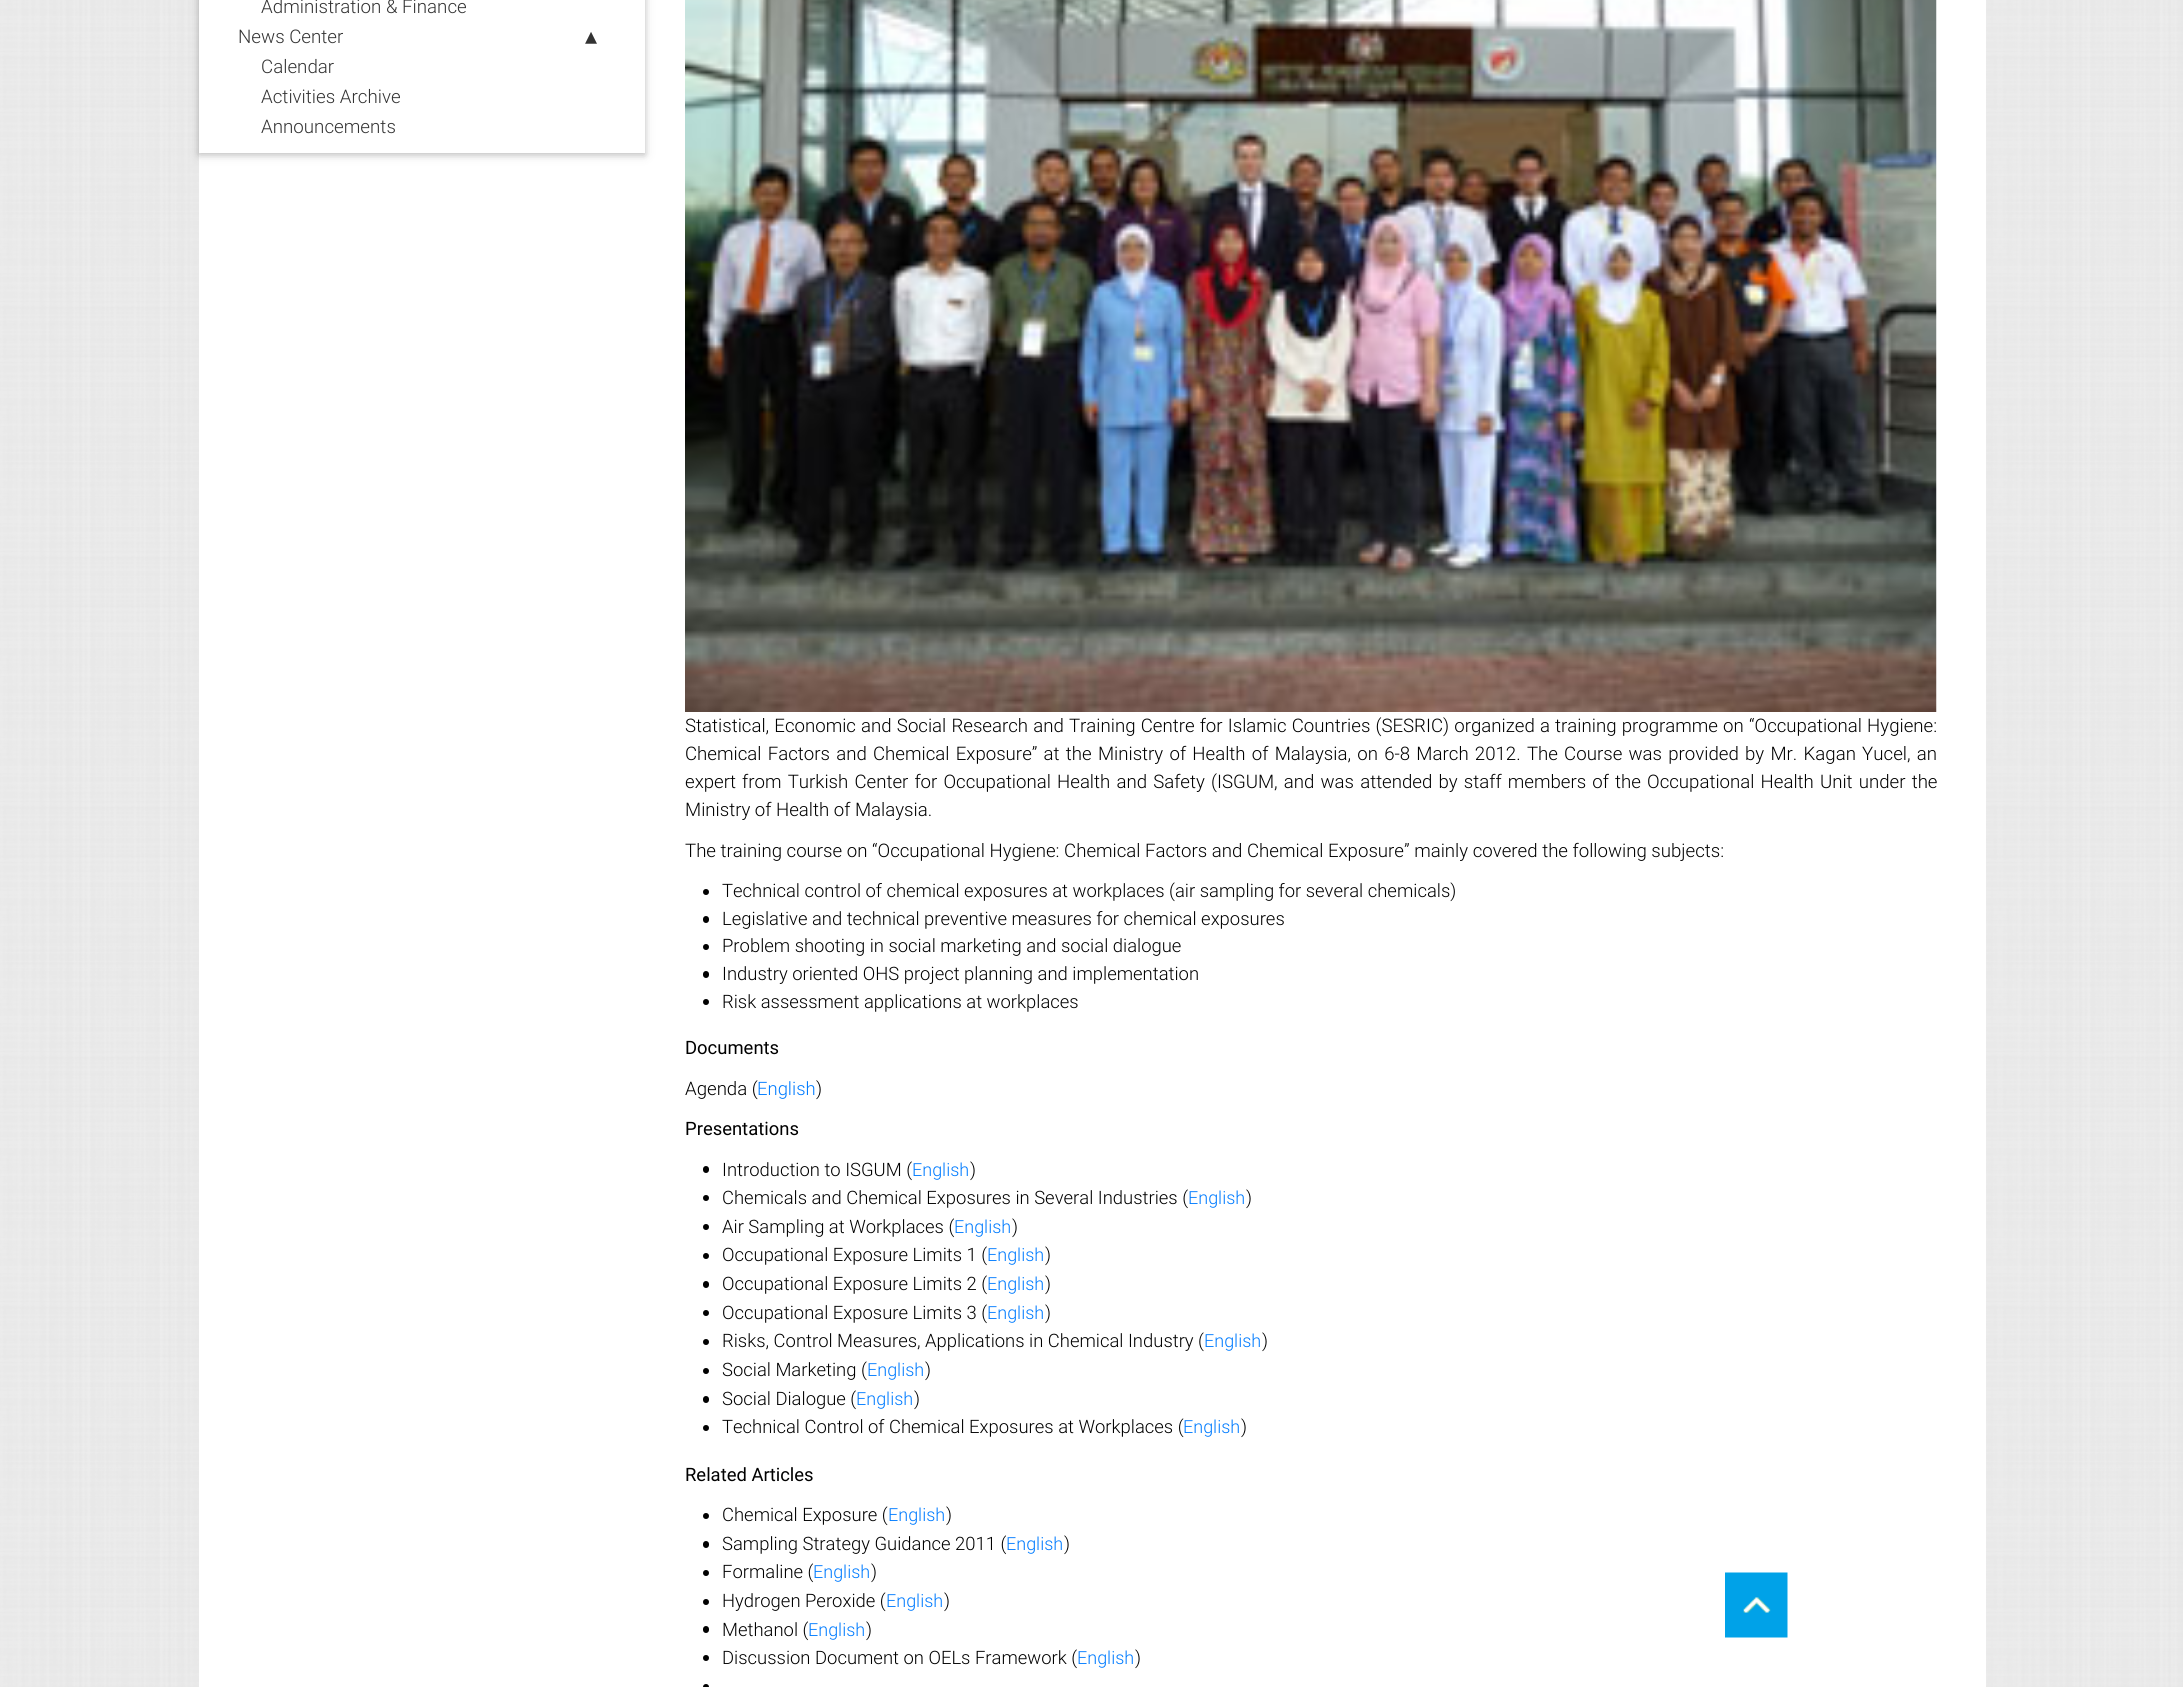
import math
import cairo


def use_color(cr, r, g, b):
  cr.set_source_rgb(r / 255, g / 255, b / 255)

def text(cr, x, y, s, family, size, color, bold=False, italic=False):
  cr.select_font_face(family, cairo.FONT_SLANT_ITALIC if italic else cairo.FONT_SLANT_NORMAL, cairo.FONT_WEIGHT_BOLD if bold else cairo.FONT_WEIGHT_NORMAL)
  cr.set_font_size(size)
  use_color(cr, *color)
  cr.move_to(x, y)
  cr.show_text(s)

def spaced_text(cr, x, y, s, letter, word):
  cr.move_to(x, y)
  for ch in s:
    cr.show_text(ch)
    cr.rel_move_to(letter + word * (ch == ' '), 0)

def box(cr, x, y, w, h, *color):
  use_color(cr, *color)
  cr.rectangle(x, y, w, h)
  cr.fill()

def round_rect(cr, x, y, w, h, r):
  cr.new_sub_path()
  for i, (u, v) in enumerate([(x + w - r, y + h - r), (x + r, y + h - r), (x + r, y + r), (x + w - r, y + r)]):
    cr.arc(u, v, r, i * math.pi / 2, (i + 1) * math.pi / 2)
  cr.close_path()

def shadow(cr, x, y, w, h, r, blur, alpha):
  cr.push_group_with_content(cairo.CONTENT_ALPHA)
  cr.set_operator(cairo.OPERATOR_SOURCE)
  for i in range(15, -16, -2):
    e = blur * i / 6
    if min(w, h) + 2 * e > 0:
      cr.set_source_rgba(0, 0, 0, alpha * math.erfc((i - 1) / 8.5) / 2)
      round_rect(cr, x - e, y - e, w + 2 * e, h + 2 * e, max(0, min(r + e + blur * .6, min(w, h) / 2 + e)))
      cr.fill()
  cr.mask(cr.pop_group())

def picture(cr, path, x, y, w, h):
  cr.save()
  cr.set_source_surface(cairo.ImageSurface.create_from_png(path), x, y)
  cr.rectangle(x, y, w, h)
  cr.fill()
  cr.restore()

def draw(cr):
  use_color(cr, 255, 255, 255)
  cr.paint()
  picture(cr, "img_01.png", 0, 0, 2183, 1687)
  box(cr, 199, 0, 1787, 1687, 255, 255, 255)
  cr.save()
  cr.set_fill_rule(cairo.FILL_RULE_EVEN_ODD)
  cr.new_path()
  cr.move_to(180, 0)
  cr.line_to(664, 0)
  cr.line_to(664, 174)
  cr.line_to(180, 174)
  cr.close_path()
  cr.move_to(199, -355)
  cr.line_to(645, -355)
  cr.line_to(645, 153)
  cr.line_to(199, 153)
  cr.close_path()
  cr.clip()
  use_color(cr, 0, 0, 0)
  shadow(cr, 199, -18, 446, 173, 0, 6, 0.12)
  cr.restore()
  cr.save()
  cr.set_fill_rule(cairo.FILL_RULE_EVEN_ODD)
  cr.new_path()
  cr.move_to(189, 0)
  cr.line_to(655, 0)
  cr.line_to(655, 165)
  cr.line_to(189, 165)
  cr.close_path()
  cr.move_to(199, -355)
  cr.line_to(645, -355)
  cr.line_to(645, 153)
  cr.line_to(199, 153)
  cr.close_path()
  cr.clip()
  use_color(cr, 0, 0, 0)
  shadow(cr, 199, -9, 446, 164, 0, 3, 0.16)
  cr.restore()
  picture(cr, "img_02.png", 685, 0, 1252, 712)
  use_color(cr, 0, 0, 0)
  cr.arc(706, 892, 3, 0, 2 * math.pi)
  cr.fill()
  round_rect(cr, 703, 916, 6, 7, 3)
  cr.fill()
  cr.arc(706, 947, 3, 0, 2 * math.pi)
  cr.fill()
  round_rect(cr, 703, 971, 6, 7, 3)
  cr.fill()
  cr.arc(706, 1002, 3, 0, 2 * math.pi)
  cr.fill()
  round_rect(cr, 703, 1166, 6, 7, 3)
  cr.fill()
  cr.arc(706, 1198, 3, 0, 2 * math.pi)
  cr.fill()
  cr.arc(706, 1227, 3, 0, 2 * math.pi)
  cr.fill()
  cr.arc(706, 1256, 3, 0, 2 * math.pi)
  cr.fill()
  round_rect(cr, 703, 1281, 6, 7, 3)
  cr.fill()
  cr.arc(706, 1313, 3, 0, 2 * math.pi)
  cr.fill()
  cr.arc(706, 1342, 3, 0, 2 * math.pi)
  cr.fill()
  cr.arc(706, 1371, 3, 0, 2 * math.pi)
  cr.fill()
  round_rect(cr, 703, 1396, 6, 7, 3)
  cr.fill()
  cr.arc(706, 1428, 3, 0, 2 * math.pi)
  cr.fill()
  cr.arc(706, 1516, 3, 0, 2 * math.pi)
  cr.fill()
  round_rect(cr, 703, 1541, 6, 7, 3)
  cr.fill()
  cr.arc(706, 1573, 3, 0, 2 * math.pi)
  cr.fill()
  cr.arc(706, 1602, 3, 0, 2 * math.pi)
  cr.fill()
  round_rect(cr, 703, 1626, 6, 7, 3)
  cr.fill()
  cr.arc(706, 1658, 3, 0, 2 * math.pi)
  cr.fill()
  cr.arc(706, 1687, 3, 0, 2 * math.pi)
  cr.fill()
  picture(cr, "img_03.png", 1725, 1572, 63, 66)
  text(cr, 261, 13, "Administration & Finance", "Roboto Light", 18.75, (51, 51, 51))
  text(cr, 238, 43, "News Center", "Roboto Light", 18.75, (51, 51, 51))
  text(cr, 585, 44, "▴", "DejaVu Sans", 24, (51, 51, 51))
  text(cr, 261, 73, "Calendar", "Roboto Light", 18.75, (51, 51, 51))
  text(cr, 261, 103, "Activities Archive", "Roboto Light", 18.75, (51, 51, 51))
  text(cr, 261, 133, "Announcements", "Roboto Light", 18.75, (51, 51, 51))
  cr.set_font_size(18.65)
  use_color(cr, 0, 0, 0)
  spaced_text(cr, 685, 732, "Statistical, Economic and Social Research and Training Centre for Islamic Countries (SESRIC) organized a training programme on “Occupational Hygiene:", 0, 0.6)
  spaced_text(cr, 685, 760, "Chemical Factors and Chemical Exposure” at the Ministry of Health of Malaysia, on 6-8 March 2012. The Course was provided by Mr. Kagan Yucel, an", 0, 1.7)
  spaced_text(cr, 685, 788, "expert from Turkish Center for Occupational Health and Safety (ISGUM, and was attended by staff members of the Occupational Health Unit under the", 0, 1.6)
  text(cr, 685, 816, "Ministry of Health of Malaysia.", "Roboto Light", 18.65, (0, 0, 0))
  text(cr, 685, 857, "The training course on “Occupational Hygiene: Chemical Factors and Chemical Exposure” mainly covered the following subjects:", "Roboto Light", 18.65, (0, 0, 0))
  text(cr, 722, 897, "Technical control of chemical exposures at workplaces (air sampling for several chemicals)", "Roboto Light", 18.45, (0, 0, 0))
  text(cr, 722, 925, "Legislative and technical preventive measures for chemical exposures", "Roboto Light", 18.45, (0, 0, 0))
  text(cr, 722, 952, "Problem shooting in social marketing and social dialogue", "Roboto Light", 18.45, (0, 0, 0))
  text(cr, 722, 980, "Industry oriented OHS project planning and implementation", "Roboto Light", 18.45, (0, 0, 0))
  text(cr, 722, 1008, "Risk assessment applications at workplaces", "Roboto Light", 18.45, (0, 0, 0))
  text(cr, 685, 1054, "Documents", "Roboto", 18.45, (0, 0, 0))
  text(cr, 685, 1095, "Agenda (", "Roboto Light", 18.65, (0, 0, 0))
  text(cr, 757, 1095, "English", "Roboto Light", 18.45, (0, 123, 255))
  text(cr, 816, 1095, ")", "Roboto Light", 18.65, (0, 0, 0))
  text(cr, 685, 1135, "Presentations", "Roboto", 18.45, (0, 0, 0))
  text(cr, 722, 1176, "Introduction to ISGUM (", "Roboto Light", 18.45, (0, 0, 0))
  text(cr, 912, 1176, "English", "Roboto Light", 18, (0, 123, 255))
  text(cr, 970, 1176, ")", "Roboto Light", 18.45, (0, 0, 0))
  text(cr, 722, 1204, "Chemicals and Chemical Exposures in Several Industries (", "Roboto Light", 18.45, (0, 0, 0))
  text(cr, 1188, 1204, "English", "Roboto Light", 18, (0, 123, 255))
  text(cr, 1246, 1204, ")", "Roboto Light", 18.45, (0, 0, 0))
  text(cr, 722, 1233, "Air Sampling at Workplaces (", "Roboto Light", 18.45, (0, 0, 0))
  text(cr, 954, 1233, "English", "Roboto Light", 18, (0, 123, 255))
  text(cr, 1012, 1233, ")", "Roboto Light", 18.45, (0, 0, 0))
  text(cr, 722, 1261, "Occupational Exposure Limits 1 (", "Roboto Light", 18.45, (0, 0, 0))
  text(cr, 987, 1261, "English", "Roboto Light", 18, (0, 123, 255))
  text(cr, 1045, 1261, ")", "Roboto Light", 18.45, (0, 0, 0))
  text(cr, 722, 1290, "Occupational Exposure Limits 2 (", "Roboto Light", 18.45, (0, 0, 0))
  text(cr, 987, 1290, "English", "Roboto Light", 18, (0, 123, 255))
  text(cr, 1045, 1290, ")", "Roboto Light", 18.45, (0, 0, 0))
  text(cr, 722, 1319, "Occupational Exposure Limits 3 (", "Roboto Light", 18.45, (0, 0, 0))
  text(cr, 987, 1319, "English", "Roboto Light", 18, (0, 123, 255))
  text(cr, 1045, 1319, ")", "Roboto Light", 18.45, (0, 0, 0))
  text(cr, 722, 1347, "Risks, Control Measures, Applications in Chemical Industry (", "Roboto Light", 18.45, (0, 0, 0))
  text(cr, 1204, 1347, "English", "Roboto Light", 18, (0, 123, 255))
  text(cr, 1262, 1347, ")", "Roboto Light", 18.45, (0, 0, 0))
  text(cr, 722, 1376, "Social Marketing (", "Roboto Light", 18.45, (0, 0, 0))
  text(cr, 867, 1376, "English", "Roboto Light", 18, (0, 123, 255))
  text(cr, 925, 1376, ")", "Roboto Light", 18.45, (0, 0, 0))
  text(cr, 722, 1405, "Social Dialogue (", "Roboto Light", 18.45, (0, 0, 0))
  text(cr, 856, 1405, "English", "Roboto Light", 18, (0, 123, 255))
  text(cr, 914, 1405, ")", "Roboto Light", 18.45, (0, 0, 0))
  text(cr, 722, 1433, "Technical Control of Chemical Exposures at Workplaces (", "Roboto Light", 18.45, (0, 0, 0))
  text(cr, 1183, 1433, "English", "Roboto Light", 18, (0, 123, 255))
  text(cr, 1241, 1433, ")", "Roboto Light", 18.45, (0, 0, 0))
  text(cr, 685, 1481, "Related Articles", "Roboto", 18.45, (0, 0, 0))
  text(cr, 722, 1521, "Chemical Exposure (", "Roboto Light", 18.45, (0, 0, 0))
  text(cr, 888, 1521, "English", "Roboto Light", 18, (0, 123, 255))
  text(cr, 946, 1521, ")", "Roboto Light", 18.45, (0, 0, 0))
  text(cr, 722, 1550, "Sampling Strategy Guidance 2011 (", "Roboto Light", 18.45, (0, 0, 0))
  text(cr, 1006, 1550, "English", "Roboto Light", 18, (0, 123, 255))
  text(cr, 1064, 1550, ")", "Roboto Light", 18.45, (0, 0, 0))
  text(cr, 722, 1578, "Formaline (", "Roboto Light", 18.45, (0, 0, 0))
  text(cr, 813, 1578, "English", "Roboto Light", 18, (0, 123, 255))
  text(cr, 871, 1578, ")", "Roboto Light", 18.45, (0, 0, 0))
  text(cr, 722, 1607, "Hydrogen Peroxide (", "Roboto Light", 18.45, (0, 0, 0))
  text(cr, 886, 1607, "English", "Roboto Light", 18, (0, 123, 255))
  text(cr, 944, 1607, ")", "Roboto Light", 18.45, (0, 0, 0))
  text(cr, 722, 1636, "Methanol (", "Roboto Light", 18.45, (0, 0, 0))
  text(cr, 808, 1636, "English", "Roboto Light", 18, (0, 123, 255))
  text(cr, 866, 1636, ")", "Roboto Light", 18.45, (0, 0, 0))
  text(cr, 722, 1664, "Discussion Document on OELs Framework (", "Roboto Light", 18.45, (0, 0, 0))
  text(cr, 1077, 1664, "English", "Roboto Light", 18, (0, 123, 255))
  text(cr, 1135, 1664, ")", "Roboto Light", 18.45, (0, 0, 0))


surface = cairo.ImageSurface(cairo.FORMAT_RGB24, 2183, 1687)
cr = cairo.Context(surface)
options = cairo.FontOptions()
options.set_hint_metrics(cairo.HINT_METRICS_OFF)
options.set_hint_style(cairo.HINT_STYLE_NONE)
cr.set_font_options(options)
cr.set_miter_limit(4)
draw(cr)
surface.write_to_png("out.png")
